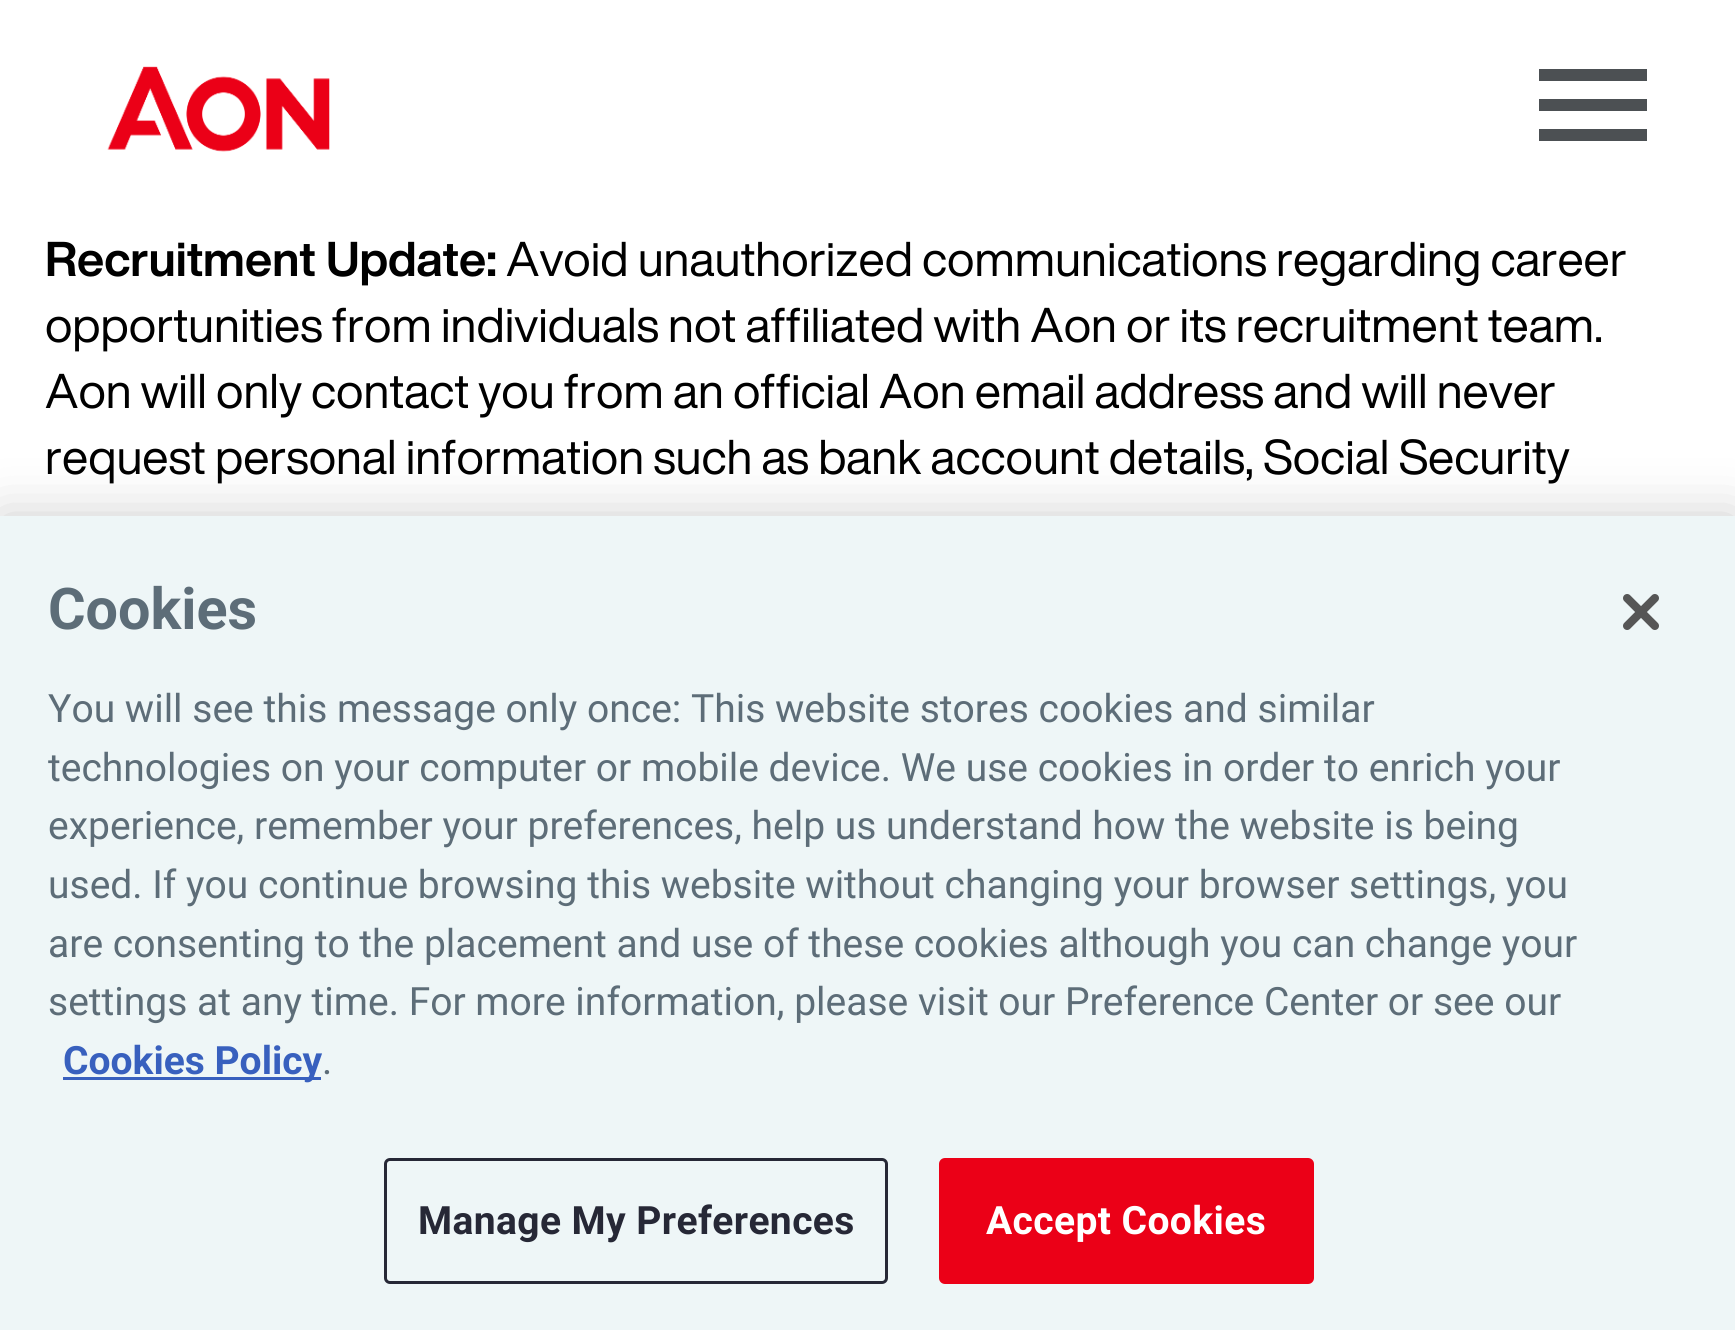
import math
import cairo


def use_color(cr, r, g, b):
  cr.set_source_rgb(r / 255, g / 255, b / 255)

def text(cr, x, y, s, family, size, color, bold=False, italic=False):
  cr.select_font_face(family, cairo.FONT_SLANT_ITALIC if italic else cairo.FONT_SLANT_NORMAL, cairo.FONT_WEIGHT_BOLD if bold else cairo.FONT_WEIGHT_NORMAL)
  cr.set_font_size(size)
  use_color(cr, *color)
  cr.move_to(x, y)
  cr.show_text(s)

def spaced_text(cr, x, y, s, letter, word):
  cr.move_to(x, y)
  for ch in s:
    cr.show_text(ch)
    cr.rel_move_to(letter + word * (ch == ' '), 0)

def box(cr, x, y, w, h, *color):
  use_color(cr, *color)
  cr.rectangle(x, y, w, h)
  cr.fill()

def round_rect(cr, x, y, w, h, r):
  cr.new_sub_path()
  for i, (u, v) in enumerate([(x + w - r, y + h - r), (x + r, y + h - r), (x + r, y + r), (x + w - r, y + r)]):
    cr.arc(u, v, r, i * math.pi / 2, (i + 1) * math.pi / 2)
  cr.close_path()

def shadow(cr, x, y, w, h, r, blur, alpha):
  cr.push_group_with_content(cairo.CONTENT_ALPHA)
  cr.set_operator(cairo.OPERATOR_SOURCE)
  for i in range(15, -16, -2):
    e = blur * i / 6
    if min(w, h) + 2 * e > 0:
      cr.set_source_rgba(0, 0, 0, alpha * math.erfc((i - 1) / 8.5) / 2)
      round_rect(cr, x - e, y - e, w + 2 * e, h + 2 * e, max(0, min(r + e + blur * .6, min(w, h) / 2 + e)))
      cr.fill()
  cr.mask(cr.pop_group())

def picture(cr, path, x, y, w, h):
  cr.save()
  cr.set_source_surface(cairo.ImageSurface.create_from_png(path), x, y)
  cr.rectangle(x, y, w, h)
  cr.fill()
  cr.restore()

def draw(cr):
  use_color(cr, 255, 255, 255)
  cr.paint()
  picture(cr, "img_01.png", 107, 66, 223, 86)
  box(cr, 1539, 69, 108, 12, 76, 80, 83)
  box(cr, 1539, 99, 108, 12, 76, 80, 83)
  box(cr, 1539, 129, 108, 12, 76, 80, 83)
  use_color(cr, 0, 0, 0)
  shadow(cr, 0, 516, 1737, 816, 0, 27, 0.2)
  box(cr, 0, 516, 1735, 814, 238, 246, 247)
  box(cr, 63, 1077, 258, 3, 56, 96, 190)
  round_rect(cr, 385.5, 1159.5, 501, 123, 4.5)
  use_color(cr, 38, 40, 54)
  cr.set_line_width(3)
  cr.stroke()
  use_color(cr, 235, 0, 23)
  round_rect(cr, 940.5, 1159.5, 372, 123, 4.5)
  cr.fill_preserve()
  cr.stroke()
  picture(cr, "img_02.png", 1623, 594, 36, 36)
  text(cr, 45, 276, "Recruitment Update:", "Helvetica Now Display", 48, (0, 0, 0), bold=True)
  text(cr, 506, 276, "Avoid unauthorized communications regarding career", "Helvetica Now Display", 48, (0, 0, 0))
  text(cr, 45, 342, "opportunities from individuals not affiliated with Aon or its recruitment team.", "Helvetica Now Display", 48, (0, 0, 0))
  text(cr, 45, 408, "Aon will only contact you from an official Aon email address and will never", "Helvetica Now Display", 48, (0, 0, 0))
  text(cr, 45, 474, "request personal information such as bank account details, Social Security", "Helvetica Now Display", 48, (0, 0, 0))
  text(cr, 48, 629, "Cookies", "Roboto", 57.5, (93, 109, 120), bold=True)
  text(cr, 48, 722, "You will see this message only once:", "Roboto", 39, (93, 109, 120))
  text(cr, 691, 722, "This website stores cookies and similar", "Roboto", 39, (93, 109, 120))
  text(cr, 48, 781, "technologies on your computer or mobile device. We use cookies in order to enrich your", "Roboto", 39, (93, 109, 120))
  text(cr, 48, 839, "experience, remember your preferences, help us understand how the website is being", "Roboto", 39, (93, 109, 120))
  text(cr, 48, 898, "used. If you continue browsing this website without changing your browser settings, you", "Roboto", 39, (93, 109, 120))
  text(cr, 48, 957, "are consenting to the placement and use of these cookies although you can change your", "Roboto", 39, (93, 109, 120))
  text(cr, 48, 1015, "settings at any time. For more information, please visit our Preference Center or see our", "Roboto", 39, (93, 109, 120))
  text(cr, 63, 1074, "Cookies Policy", "Roboto", 39, (56, 96, 190), bold=True)
  text(cr, 322, 1074, ".", "Roboto", 39, (93, 109, 120))
  cr.select_font_face("Roboto", cairo.FONT_SLANT_NORMAL, cairo.FONT_WEIGHT_BOLD)
  use_color(cr, 38, 40, 54)
  spaced_text(cr, 418, 1234, "Manage My Preferences", 0.4, 0)
  use_color(cr, 255, 255, 255)
  spaced_text(cr, 986, 1234, "Accept Cookies", 0.4, 0)


surface = cairo.ImageSurface(cairo.FORMAT_RGB24, 1735, 1330)
cr = cairo.Context(surface)
options = cairo.FontOptions()
options.set_hint_metrics(cairo.HINT_METRICS_OFF)
options.set_hint_style(cairo.HINT_STYLE_NONE)
cr.set_font_options(options)
cr.set_miter_limit(4)
draw(cr)
surface.write_to_png("out.png")
